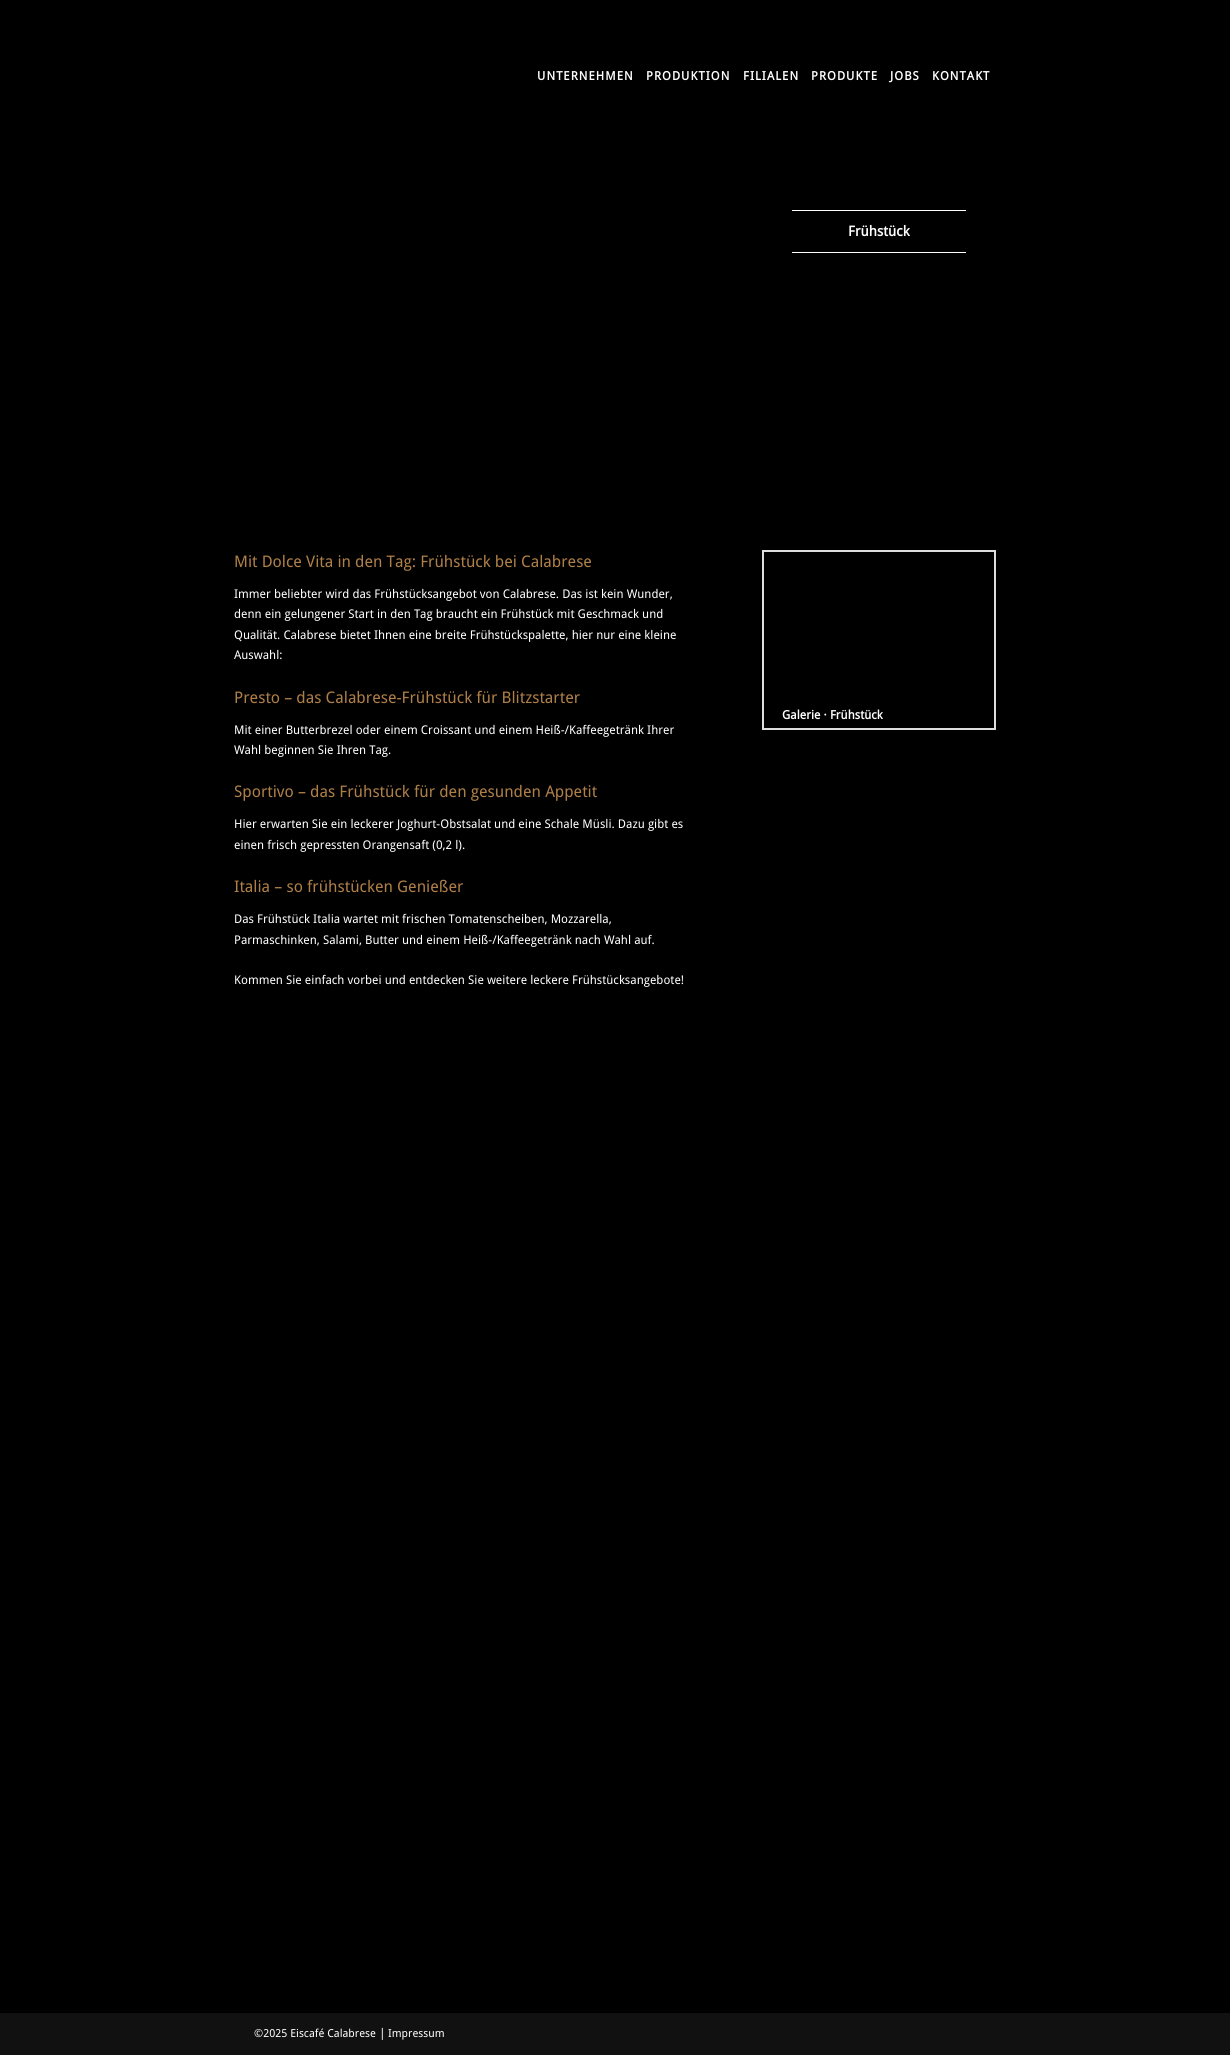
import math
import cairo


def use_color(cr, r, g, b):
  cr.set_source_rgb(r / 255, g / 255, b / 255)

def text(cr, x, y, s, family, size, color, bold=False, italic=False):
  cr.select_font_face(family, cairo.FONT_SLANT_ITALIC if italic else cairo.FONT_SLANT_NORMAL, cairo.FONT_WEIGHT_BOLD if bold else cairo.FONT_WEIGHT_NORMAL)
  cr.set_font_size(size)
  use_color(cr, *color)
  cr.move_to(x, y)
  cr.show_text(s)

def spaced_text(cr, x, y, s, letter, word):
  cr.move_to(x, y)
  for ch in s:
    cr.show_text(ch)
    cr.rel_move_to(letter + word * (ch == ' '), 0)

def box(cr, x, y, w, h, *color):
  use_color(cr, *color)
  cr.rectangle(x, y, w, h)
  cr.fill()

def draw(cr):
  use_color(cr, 0, 0, 0)
  cr.paint()
  box(cr, 792, 210, 174, 1, 255, 255, 255)
  box(cr, 792, 252, 174, 1, 255, 255, 255)
  cr.rectangle(763, 551, 232, 178)
  use_color(cr, 221, 221, 221)
  cr.stroke()
  box(cr, 0, 2013, 1230, 42, 17, 17, 17)
  cr.select_font_face("Droid Sans", cairo.FONT_SLANT_NORMAL, cairo.FONT_WEIGHT_BOLD)
  cr.set_font_size(12)
  use_color(cr, 255, 255, 255)
  spaced_text(cr, 537, 80, "UNTERNEHMEN", 1, 0)
  spaced_text(cr, 646, 80, "PRODUKTION", 1, 0)
  spaced_text(cr, 743, 80, "FILIALEN", 1, 0)
  spaced_text(cr, 811, 80, "PRODUKTE", 1, 0)
  spaced_text(cr, 890, 80, "JOBS", 1, 0)
  spaced_text(cr, 932, 80, "KONTAKT", 1, 0)
  text(cr, 848, 236, "Frühstück", "Droid Sans", 14, (255, 255, 255), bold=True)
  text(cr, 234, 567, "Mit Dolce Vita in den Tag: Frühstück bei Calabrese", "Droid Sans", 16, (175, 127, 72))
  text(cr, 234, 598, "Immer beliebter wird das Frühstücksangebot von Calabrese. Das ist kein Wunder,", "Droid Sans", 12, (255, 255, 255))
  text(cr, 234, 618, "denn ein gelungener Start in den Tag braucht ein Frühstück mit Geschmack und", "Droid Sans", 12, (255, 255, 255))
  text(cr, 234, 639, "Qualität. Calabrese bietet Ihnen eine breite Frühstückspalette, hier nur eine kleine", "Droid Sans", 12, (255, 255, 255))
  text(cr, 234, 659, "Auswahl:", "Droid Sans", 12, (255, 255, 255))
  text(cr, 234, 703, "Presto – das Calabrese-Frühstück für Blitzstarter", "Droid Sans", 16, (175, 127, 72))
  text(cr, 234, 734, "Mit einer Butterbrezel oder einem Croissant und einem Heiß-/Kaffeegetränk Ihrer", "Droid Sans", 12, (255, 255, 255))
  text(cr, 234, 754, "Wahl beginnen Sie Ihren Tag.", "Droid Sans", 12, (255, 255, 255))
  text(cr, 234, 797, "Sportivo – das Frühstück für den gesunden Appetit", "Droid Sans", 16, (175, 127, 72))
  text(cr, 234, 828, "Hier erwarten Sie ein leckerer Joghurt-Obstsalat und eine Schale Müsli. Dazu gibt es", "Droid Sans", 12, (255, 255, 255))
  text(cr, 234, 849, "einen frisch gepressten Orangensaft (0,2 l).", "Droid Sans", 12, (255, 255, 255))
  text(cr, 234, 892, "Italia – so frühstücken Genießer", "Droid Sans", 16, (175, 127, 72))
  text(cr, 234, 923, "Das Frühstück Italia wartet mit frischen Tomatenscheiben, Mozzarella,", "Droid Sans", 12, (255, 255, 255))
  text(cr, 234, 944, "Parmaschinken, Salami, Butter und einem Heiß-/Kaffeegetränk nach Wahl auf.", "Droid Sans", 12, (255, 255, 255))
  text(cr, 234, 984, "Kommen Sie einfach vorbei und entdecken Sie weitere leckere Frühstücksangebote!", "Droid Sans", 12, (255, 255, 255))
  text(cr, 782, 719, "Galerie · Frühstück", "Droid Sans", 12, (255, 255, 255), bold=True)
  text(cr, 254, 2037, "©2025 Eiscafé Calabrese", "Droid Sans", 11, (255, 255, 255))
  text(cr, 379, 2037, "|", "Droid Sans", 12, (255, 255, 255))
  text(cr, 388, 2037, "Impressum", "Droid Sans", 11, (255, 255, 255))


surface = cairo.ImageSurface(cairo.FORMAT_RGB24, 1230, 2055)
cr = cairo.Context(surface)
options = cairo.FontOptions()
options.set_hint_metrics(cairo.HINT_METRICS_OFF)
options.set_hint_style(cairo.HINT_STYLE_NONE)
cr.set_font_options(options)
cr.set_miter_limit(4)
draw(cr)
surface.write_to_png("out.png")
